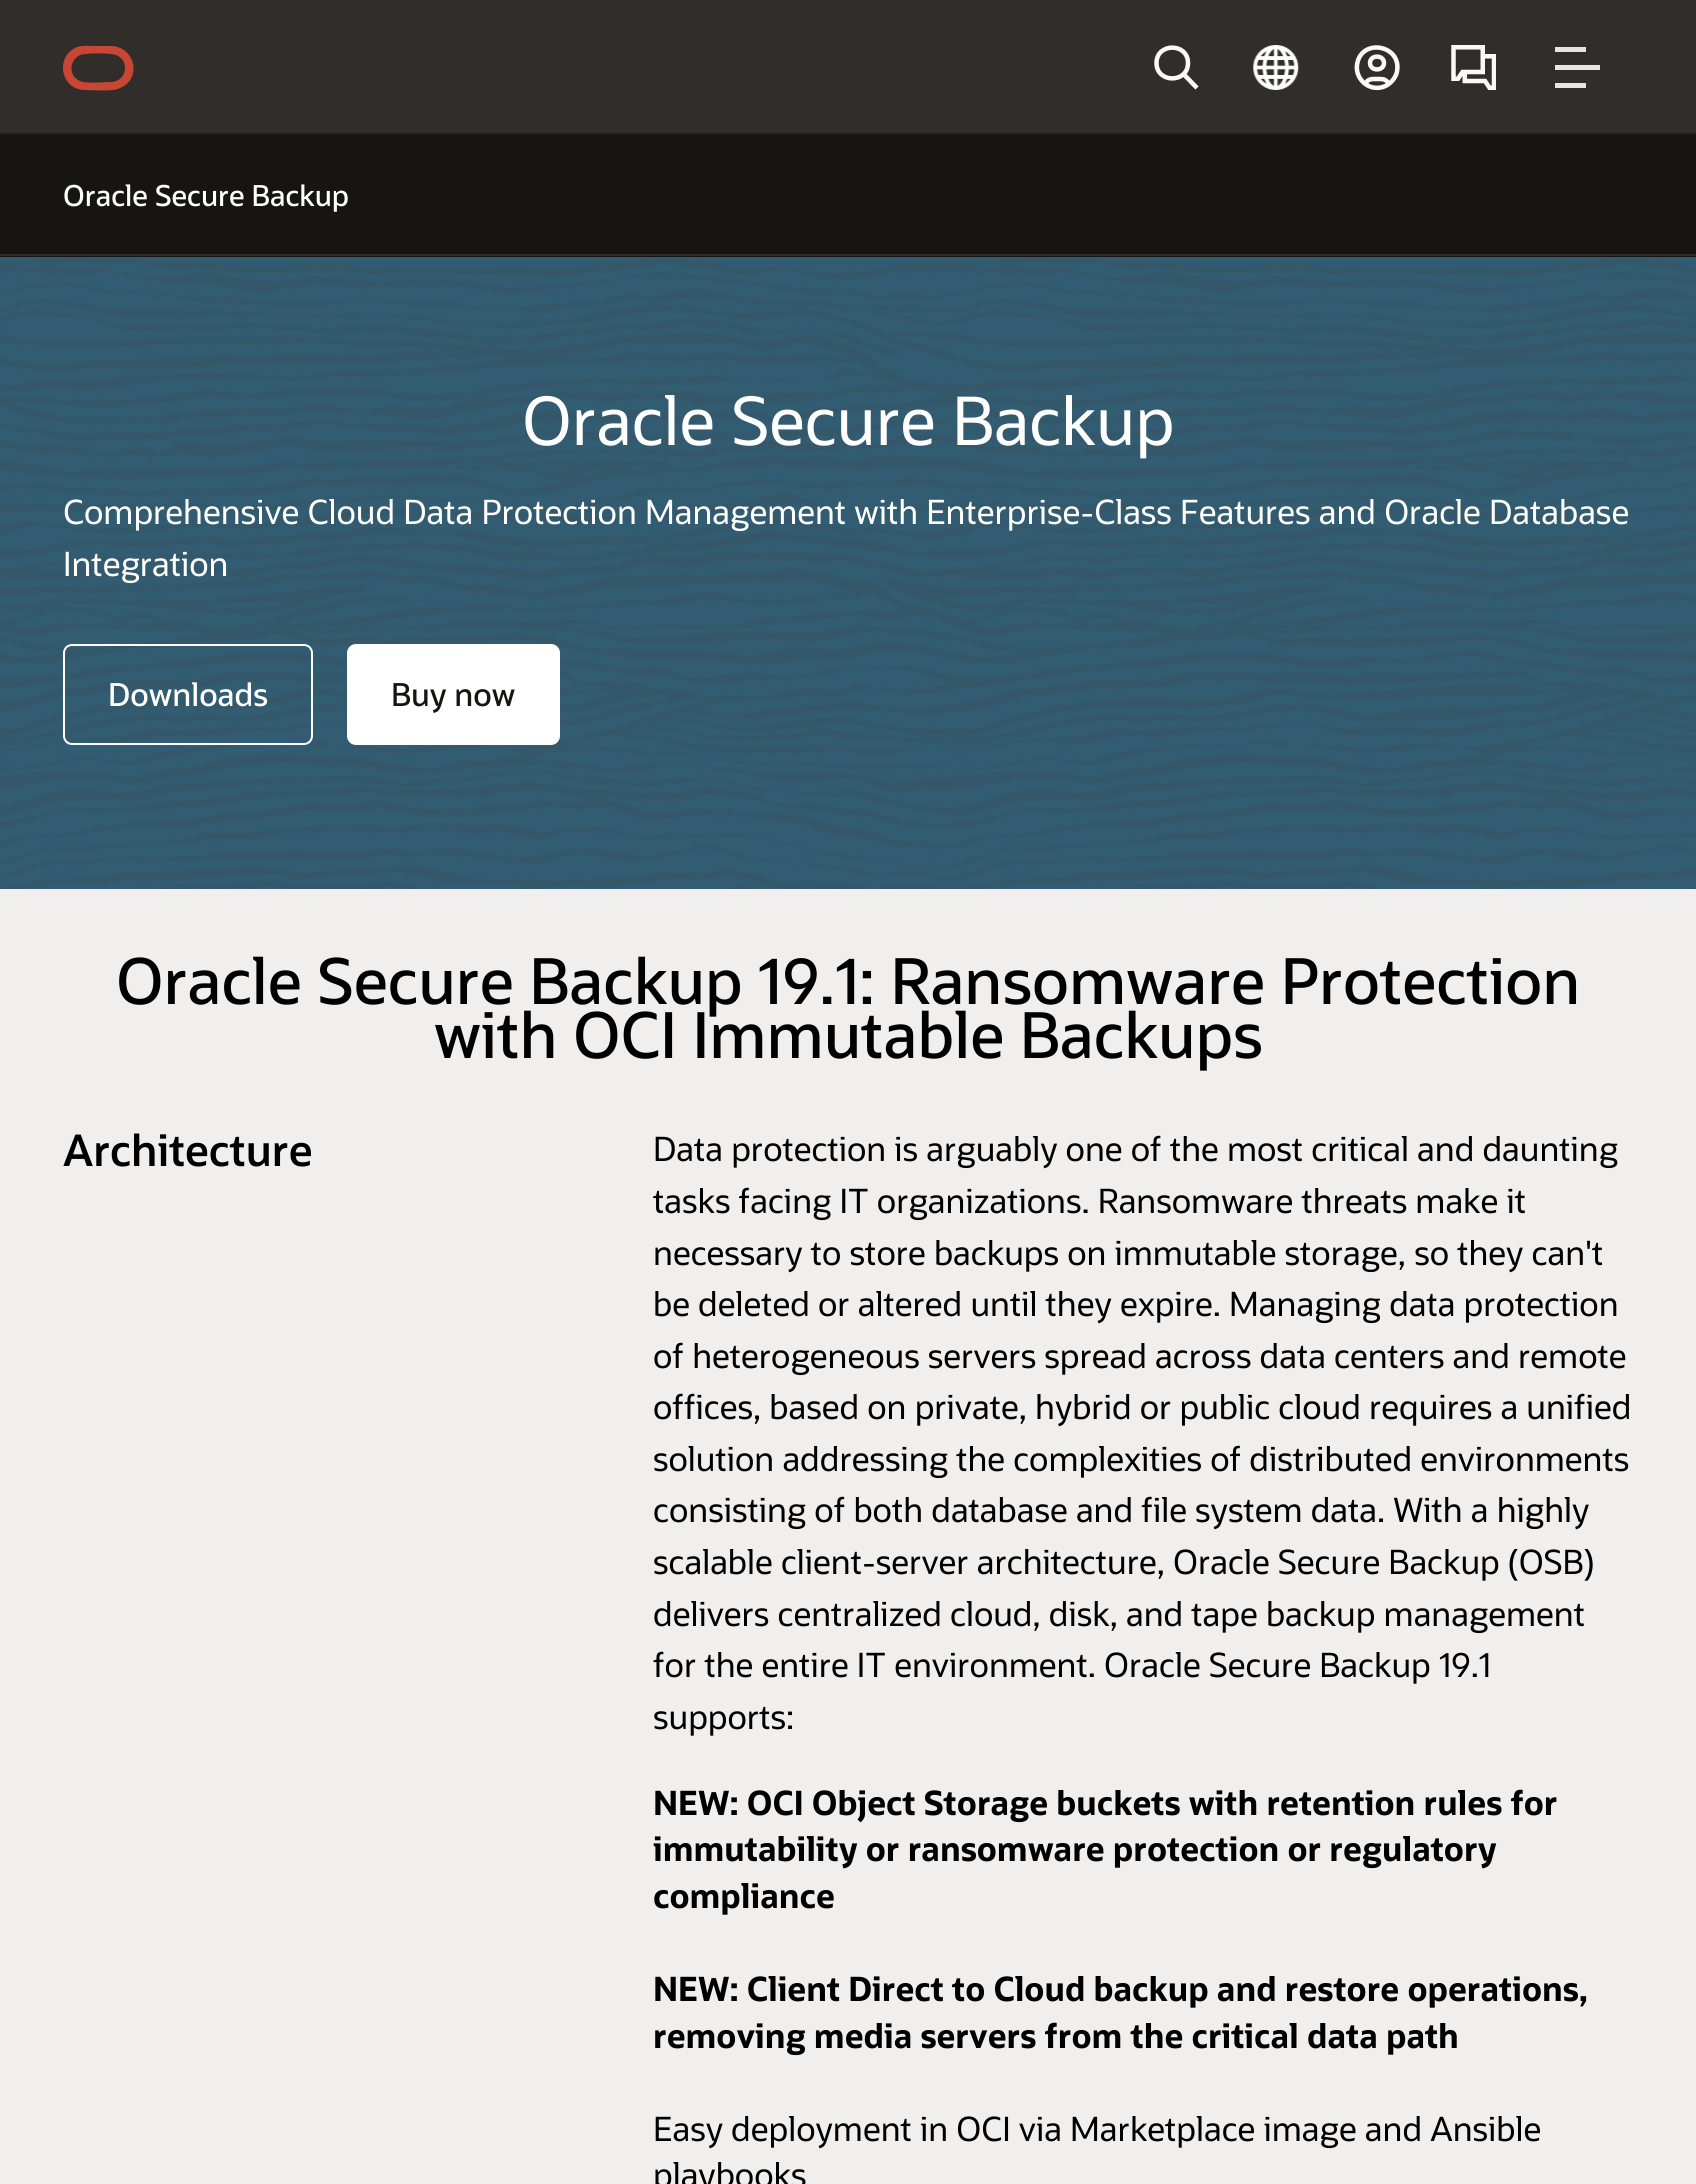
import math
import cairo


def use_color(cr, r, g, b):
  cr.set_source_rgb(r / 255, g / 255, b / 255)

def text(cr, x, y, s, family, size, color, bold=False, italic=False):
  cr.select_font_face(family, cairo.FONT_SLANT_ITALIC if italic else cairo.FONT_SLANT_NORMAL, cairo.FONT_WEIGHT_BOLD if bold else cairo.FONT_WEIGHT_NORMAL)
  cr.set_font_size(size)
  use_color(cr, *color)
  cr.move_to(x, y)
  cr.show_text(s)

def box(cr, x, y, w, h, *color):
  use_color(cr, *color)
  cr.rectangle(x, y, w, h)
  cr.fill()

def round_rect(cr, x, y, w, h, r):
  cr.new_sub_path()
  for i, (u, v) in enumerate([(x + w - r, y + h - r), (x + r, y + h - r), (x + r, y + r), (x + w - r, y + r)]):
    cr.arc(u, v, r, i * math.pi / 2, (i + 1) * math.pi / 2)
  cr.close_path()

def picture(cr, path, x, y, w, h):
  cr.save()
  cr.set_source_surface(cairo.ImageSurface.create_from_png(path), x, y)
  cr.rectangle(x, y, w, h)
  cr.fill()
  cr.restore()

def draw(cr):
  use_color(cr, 241, 239, 237)
  cr.paint()
  box(cr, 0, 0, 1696, 133, 49, 45, 42)
  use_color(cr, 199, 70, 52)
  cr.new_path()
  cr.move_to(85, 90)
  cr.curve_to(61, 90, 54, 57, 77, 47)
  cr.curve_to(83, 45, 91, 46, 98, 46)
  cr.line_to(111, 46)
  cr.curve_to(136, 47, 142, 79, 120, 88)
  cr.curve_to(113, 92, 94, 90, 85, 90)
  cr.move_to(111, 82)
  cr.curve_to(126, 82, 131, 61, 116, 55)
  cr.curve_to(111, 53, 92, 53, 86, 54)
  cr.curve_to(70, 54, 66, 75, 80, 81)
  cr.curve_to(86, 84, 104, 82, 111, 82)
  cr.fill()
  cr.new_path()
  cr.move_to(1183.5, 74)
  cr.line_to(1197, 88)
  cr.move_to(1188, 63)
  cr.curve_to(1188, 83.5, 1156.5, 83.5, 1156.5, 63)
  cr.curve_to(1156.5, 42.5, 1188, 42.5, 1188, 63)
  cr.close_path()
  use_color(cr, 251, 249, 248)
  cr.set_line_width(4.5)
  cr.stroke()
  picture(cr, "img_01.png", 1253, 45, 46, 45)
  cr.new_path()
  cr.move_to(1388, 84.5)
  cr.curve_to(1387.5, 78.5, 1381.5, 79, 1377, 79)
  cr.curve_to(1372.5, 79, 1366.5, 78.5, 1366, 84.5)
  cr.move_to(1388, 84.5)
  cr.curve_to(1392.5, 81.5, 1396, 76.5, 1397, 71.5)
  cr.curve_to(1402, 44.5, 1360.5, 37.5, 1357, 65)
  cr.curve_to(1356, 72.5, 1359.5, 80, 1366, 84.5)
  cr.move_to(1388, 84.5)
  cr.curve_to(1381.5, 89, 1372.5, 89, 1366, 84.5)
  cr.move_to(1384, 63)
  cr.curve_to(1384, 71.5, 1370, 71.5, 1370, 63)
  cr.curve_to(1370, 54.5, 1384, 54.5, 1384, 63)
  cr.close_path()
  cr.stroke()
  picture(cr, "img_02.png", 1451, 45, 45, 45)
  box(cr, 1555, 47, 31, 5, 231, 229, 227)
  box(cr, 1555, 65, 45, 5, 231, 229, 227)
  box(cr, 1555, 83, 31, 5, 231, 229, 227)
  box(cr, 0, 133, 1696, 2, 32, 30, 28)
  box(cr, 0, 135, 1696, 122, 22, 21, 19)
  box(cr, 0, 254, 1696, 2, 45, 44, 43)
  box(cr, 0, 257, 1696, 632, 50, 92, 114)
  picture(cr, "img_03.png", 0, 257, 1696, 632)
  round_rect(cr, 64, 645, 248, 99, 8)
  use_color(cr, 255, 255, 255)
  cr.set_line_width(2)
  cr.stroke()
  round_rect(cr, 347, 644, 213, 101, 9)
  cr.fill()
  text(cr, 63, 206, "Oracle Secure Backup", "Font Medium", 28.75, (255, 255, 255))
  text(cr, 522, 445, "Oracle Secure Backup", "Font", 66.5, (255, 255, 255))
  text(cr, 63, 524, "Comprehensive Cloud Data Protection Management with Enterprise-Class Features and Oracle Database", "Font", 33.3, (255, 255, 255))
  text(cr, 63, 576, "Integration", "Font", 33.3, (255, 255, 255))
  text(cr, 108, 706, "Downloads", "Font Medium", 31.5, (255, 255, 255))
  text(cr, 391, 706, "Buy now", "Font Medium", 31.5, (22, 21, 19))
  text(cr, 116, 1004, "Oracle Secure Backup 19.1: Ransomware Protection", "Font Medium", 63, (0, 0, 0))
  text(cr, 434, 1058, "with OCI Immutable Backups", "Font Medium", 63, (0, 0, 0))
  text(cr, 63, 1166, "Architecture", "Font SemiBold", 43.25, (0, 0, 0))
  text(cr, 653, 1161, "Data protection is arguably one of the most critical and daunting", "Font", 33.3, (0, 0, 0))
  text(cr, 653, 1213, "tasks facing IT organizations. Ransomware threats make it", "Font", 33.3, (0, 0, 0))
  text(cr, 653, 1265, "necessary to store backups on immutable storage, so they can't", "Font", 33.3, (0, 0, 0))
  text(cr, 653, 1316, "be deleted or altered until they expire. Managing data protection", "Font", 33.3, (0, 0, 0))
  text(cr, 653, 1368, "of heterogeneous servers spread across data centers and remote", "Font", 33.3, (0, 0, 0))
  text(cr, 653, 1419, "offices, based on private, hybrid or public cloud requires a unified", "Font", 33.3, (0, 0, 0))
  text(cr, 653, 1471, "solution addressing the complexities of distributed environments", "Font", 33.3, (0, 0, 0))
  text(cr, 653, 1522, "consisting of both database and file system data. With a highly", "Font", 33.3, (0, 0, 0))
  text(cr, 653, 1574, "scalable client-server architecture, Oracle Secure Backup (OSB)", "Font", 33.3, (0, 0, 0))
  text(cr, 653, 1626, "delivers centralized cloud, disk, and tape backup management", "Font", 33.3, (0, 0, 0))
  text(cr, 653, 1677, "for the entire IT environment. Oracle Secure Backup 19.1", "Font", 33.3, (0, 0, 0))
  text(cr, 653, 1729, "supports:", "Font", 33.3, (0, 0, 0))
  text(cr, 653, 1815, "NEW: OCI Object Storage buckets with retention rules for", "Font", 33.3, (0, 0, 0), bold=True)
  text(cr, 653, 1861, "immutability or ransomware protection or regulatory", "Font", 33.3, (0, 0, 0), bold=True)
  text(cr, 653, 1908, "compliance", "Font", 33.3, (0, 0, 0), bold=True)
  text(cr, 653, 2001, "NEW: Client Direct to Cloud backup and restore operations,", "Font", 33.3, (0, 0, 0), bold=True)
  text(cr, 653, 2048, "removing media servers from the critical data path", "Font", 33.3, (0, 0, 0), bold=True)
  text(cr, 653, 2141, "Easy deployment in OCI via Marketplace image and Ansible", "Font", 33.3, (0, 0, 0))
  text(cr, 653, 2187, "playbooks", "Font", 33.3, (0, 0, 0))


surface = cairo.ImageSurface(cairo.FORMAT_RGB24, 1696, 2184)
cr = cairo.Context(surface)
options = cairo.FontOptions()
options.set_hint_metrics(cairo.HINT_METRICS_OFF)
options.set_hint_style(cairo.HINT_STYLE_NONE)
cr.set_font_options(options)
cr.set_miter_limit(4)
draw(cr)
surface.write_to_png("out.png")
